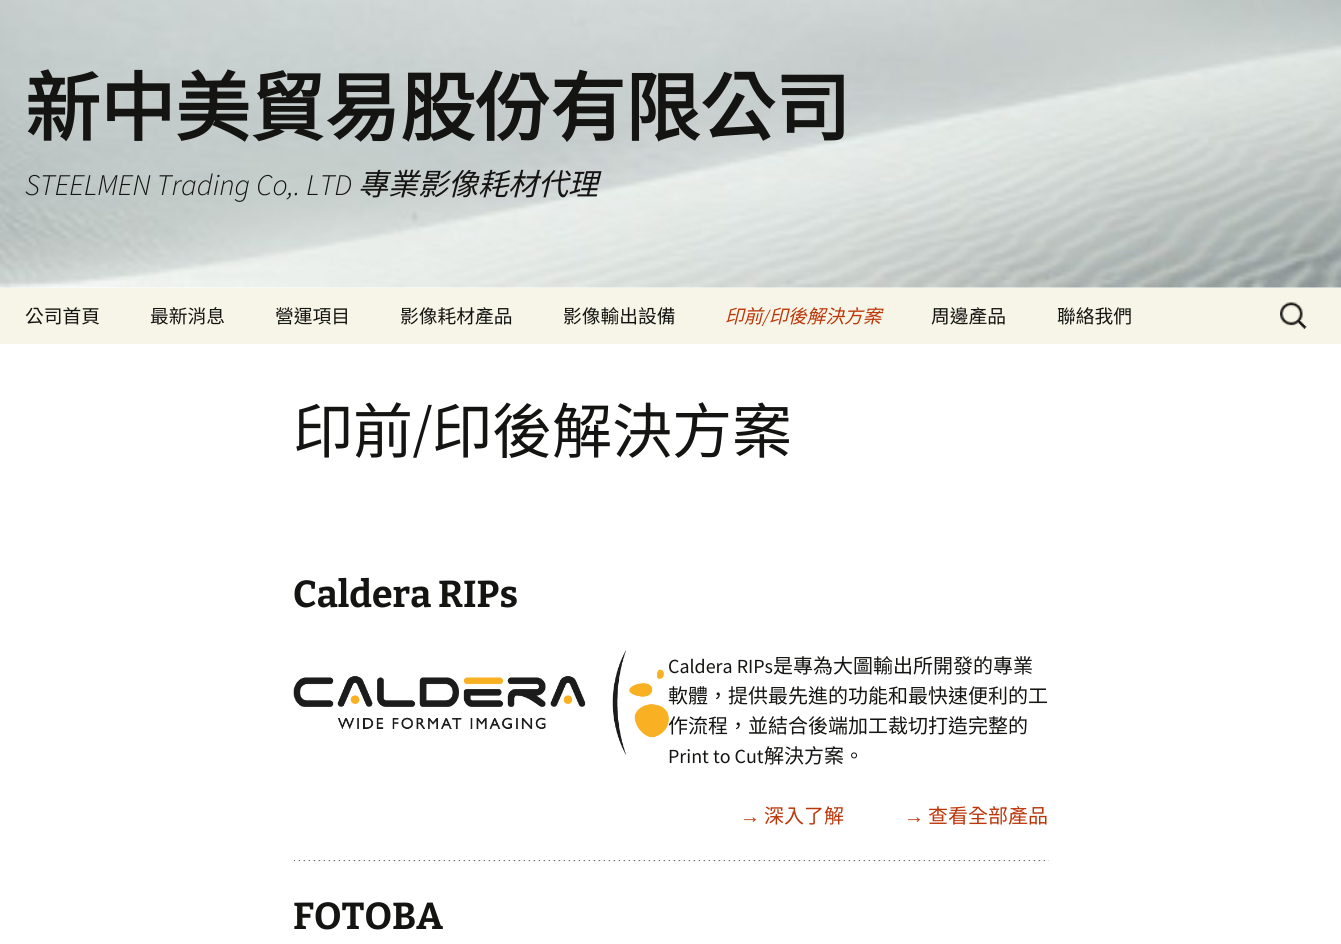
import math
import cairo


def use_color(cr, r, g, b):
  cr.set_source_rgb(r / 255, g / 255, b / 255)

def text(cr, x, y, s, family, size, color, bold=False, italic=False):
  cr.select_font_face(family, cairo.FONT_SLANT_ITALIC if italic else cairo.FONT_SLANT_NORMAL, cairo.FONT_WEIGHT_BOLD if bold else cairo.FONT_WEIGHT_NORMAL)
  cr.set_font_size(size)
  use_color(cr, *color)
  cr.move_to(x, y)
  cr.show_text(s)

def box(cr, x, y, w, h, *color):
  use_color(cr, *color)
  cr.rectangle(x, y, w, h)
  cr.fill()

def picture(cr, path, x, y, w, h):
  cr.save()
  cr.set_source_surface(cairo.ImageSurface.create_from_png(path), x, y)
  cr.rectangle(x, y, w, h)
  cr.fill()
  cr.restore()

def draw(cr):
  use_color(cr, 255, 255, 255)
  cr.paint()
  picture(cr, "img_01.png", 0, 0, 1341, 288)
  box(cr, 0, 288, 1341, 56, 247, 245, 231)
  picture(cr, "img_02.png", 1280, 302, 27, 27)
  picture(cr, "img_03.png", 293, 650, 376, 105)
  picture(cr, "img_04.png", 293, 860, 756, 2)
  text(cr, 25, 135, "新中美貿易股份有限公司", "Noto Sans CJK TC", 75, (20, 20, 18), bold=True)
  text(cr, 25, 195, "STEELMEN Trading Co,. LTD", "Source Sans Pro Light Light", 30, (20, 20, 18), italic=True)
  text(cr, 358, 195, "專業影像耗材代理", "Noto Sans CJK TC", 30, (20, 20, 18), italic=True)
  text(cr, 25, 323, "公司首頁", "Noto Sans CJK TC", 18.75, (20, 20, 18))
  text(cr, 150, 323, "最新消息", "Noto Sans CJK TC", 18.75, (20, 20, 18))
  text(cr, 275, 323, "營運項目", "Noto Sans CJK TC", 18.75, (20, 20, 18))
  text(cr, 400, 323, "影像耗材產品", "Noto Sans CJK TC", 18.75, (20, 20, 18))
  text(cr, 563, 323, "影像輸出設備", "Noto Sans CJK TC", 18.75, (20, 20, 18))
  text(cr, 725, 323, "印前", "Noto Sans CJK TC", 18.75, (188, 54, 10), italic=True)
  text(cr, 763, 323, "/", "Source Sans Pro", 18.75, (188, 54, 10), italic=True)
  text(cr, 769, 323, "印後解決方案", "Noto Sans CJK TC", 18.75, (188, 54, 10), italic=True)
  text(cr, 931, 323, "周邊產品", "Noto Sans CJK TC", 18.75, (20, 20, 18))
  text(cr, 1057, 323, "聯絡我們", "Noto Sans CJK TC", 18.75, (20, 20, 18))
  text(cr, 293, 453, "印前", "Noto Sans CJK TC", 60, (20, 20, 18))
  text(cr, 413, 453, "/", "Bitter", 60, (20, 20, 18))
  text(cr, 432, 453, "印後解決方案", "Noto Sans CJK TC", 60, (20, 20, 18))
  text(cr, 293, 607, "Caldera RIPs", "Bitter", 37.5, (20, 20, 18), bold=True)
  text(cr, 668, 673, "Caldera RIPs", "Source Sans Pro", 20, (20, 20, 18))
  text(cr, 773, 673, "是專為大圖輸出所開發的專業", "Noto Sans CJK TC", 20, (20, 20, 18))
  text(cr, 668, 703, "軟體，提供最先進的功能和最快速便利的工", "Noto Sans CJK TC", 20, (20, 20, 18))
  text(cr, 668, 733, "作流程，並結合後端加工裁切打造完整的", "Noto Sans CJK TC", 20, (20, 20, 18))
  text(cr, 668, 763, "Print to Cut", "Source Sans Pro", 20, (20, 20, 18))
  text(cr, 764, 763, "解決方案。", "Noto Sans CJK TC", 20, (20, 20, 18))
  text(cr, 740, 823, "→", "Liberation Sans", 20, (188, 54, 10))
  text(cr, 764, 823, "深入了解", "Noto Sans CJK TC", 20, (188, 54, 10))
  text(cr, 904, 823, "→", "Liberation Sans", 20, (188, 54, 10))
  text(cr, 928, 823, "查看全部產品", "Noto Sans CJK TC", 20, (188, 54, 10))
  text(cr, 293, 929, "FOTOBA", "Bitter", 37.5, (20, 20, 18), bold=True)


surface = cairo.ImageSurface(cairo.FORMAT_RGB24, 1341, 944)
cr = cairo.Context(surface)
options = cairo.FontOptions()
options.set_hint_metrics(cairo.HINT_METRICS_OFF)
options.set_hint_style(cairo.HINT_STYLE_NONE)
cr.set_font_options(options)
cr.set_miter_limit(4)
draw(cr)
surface.write_to_png("out.png")
